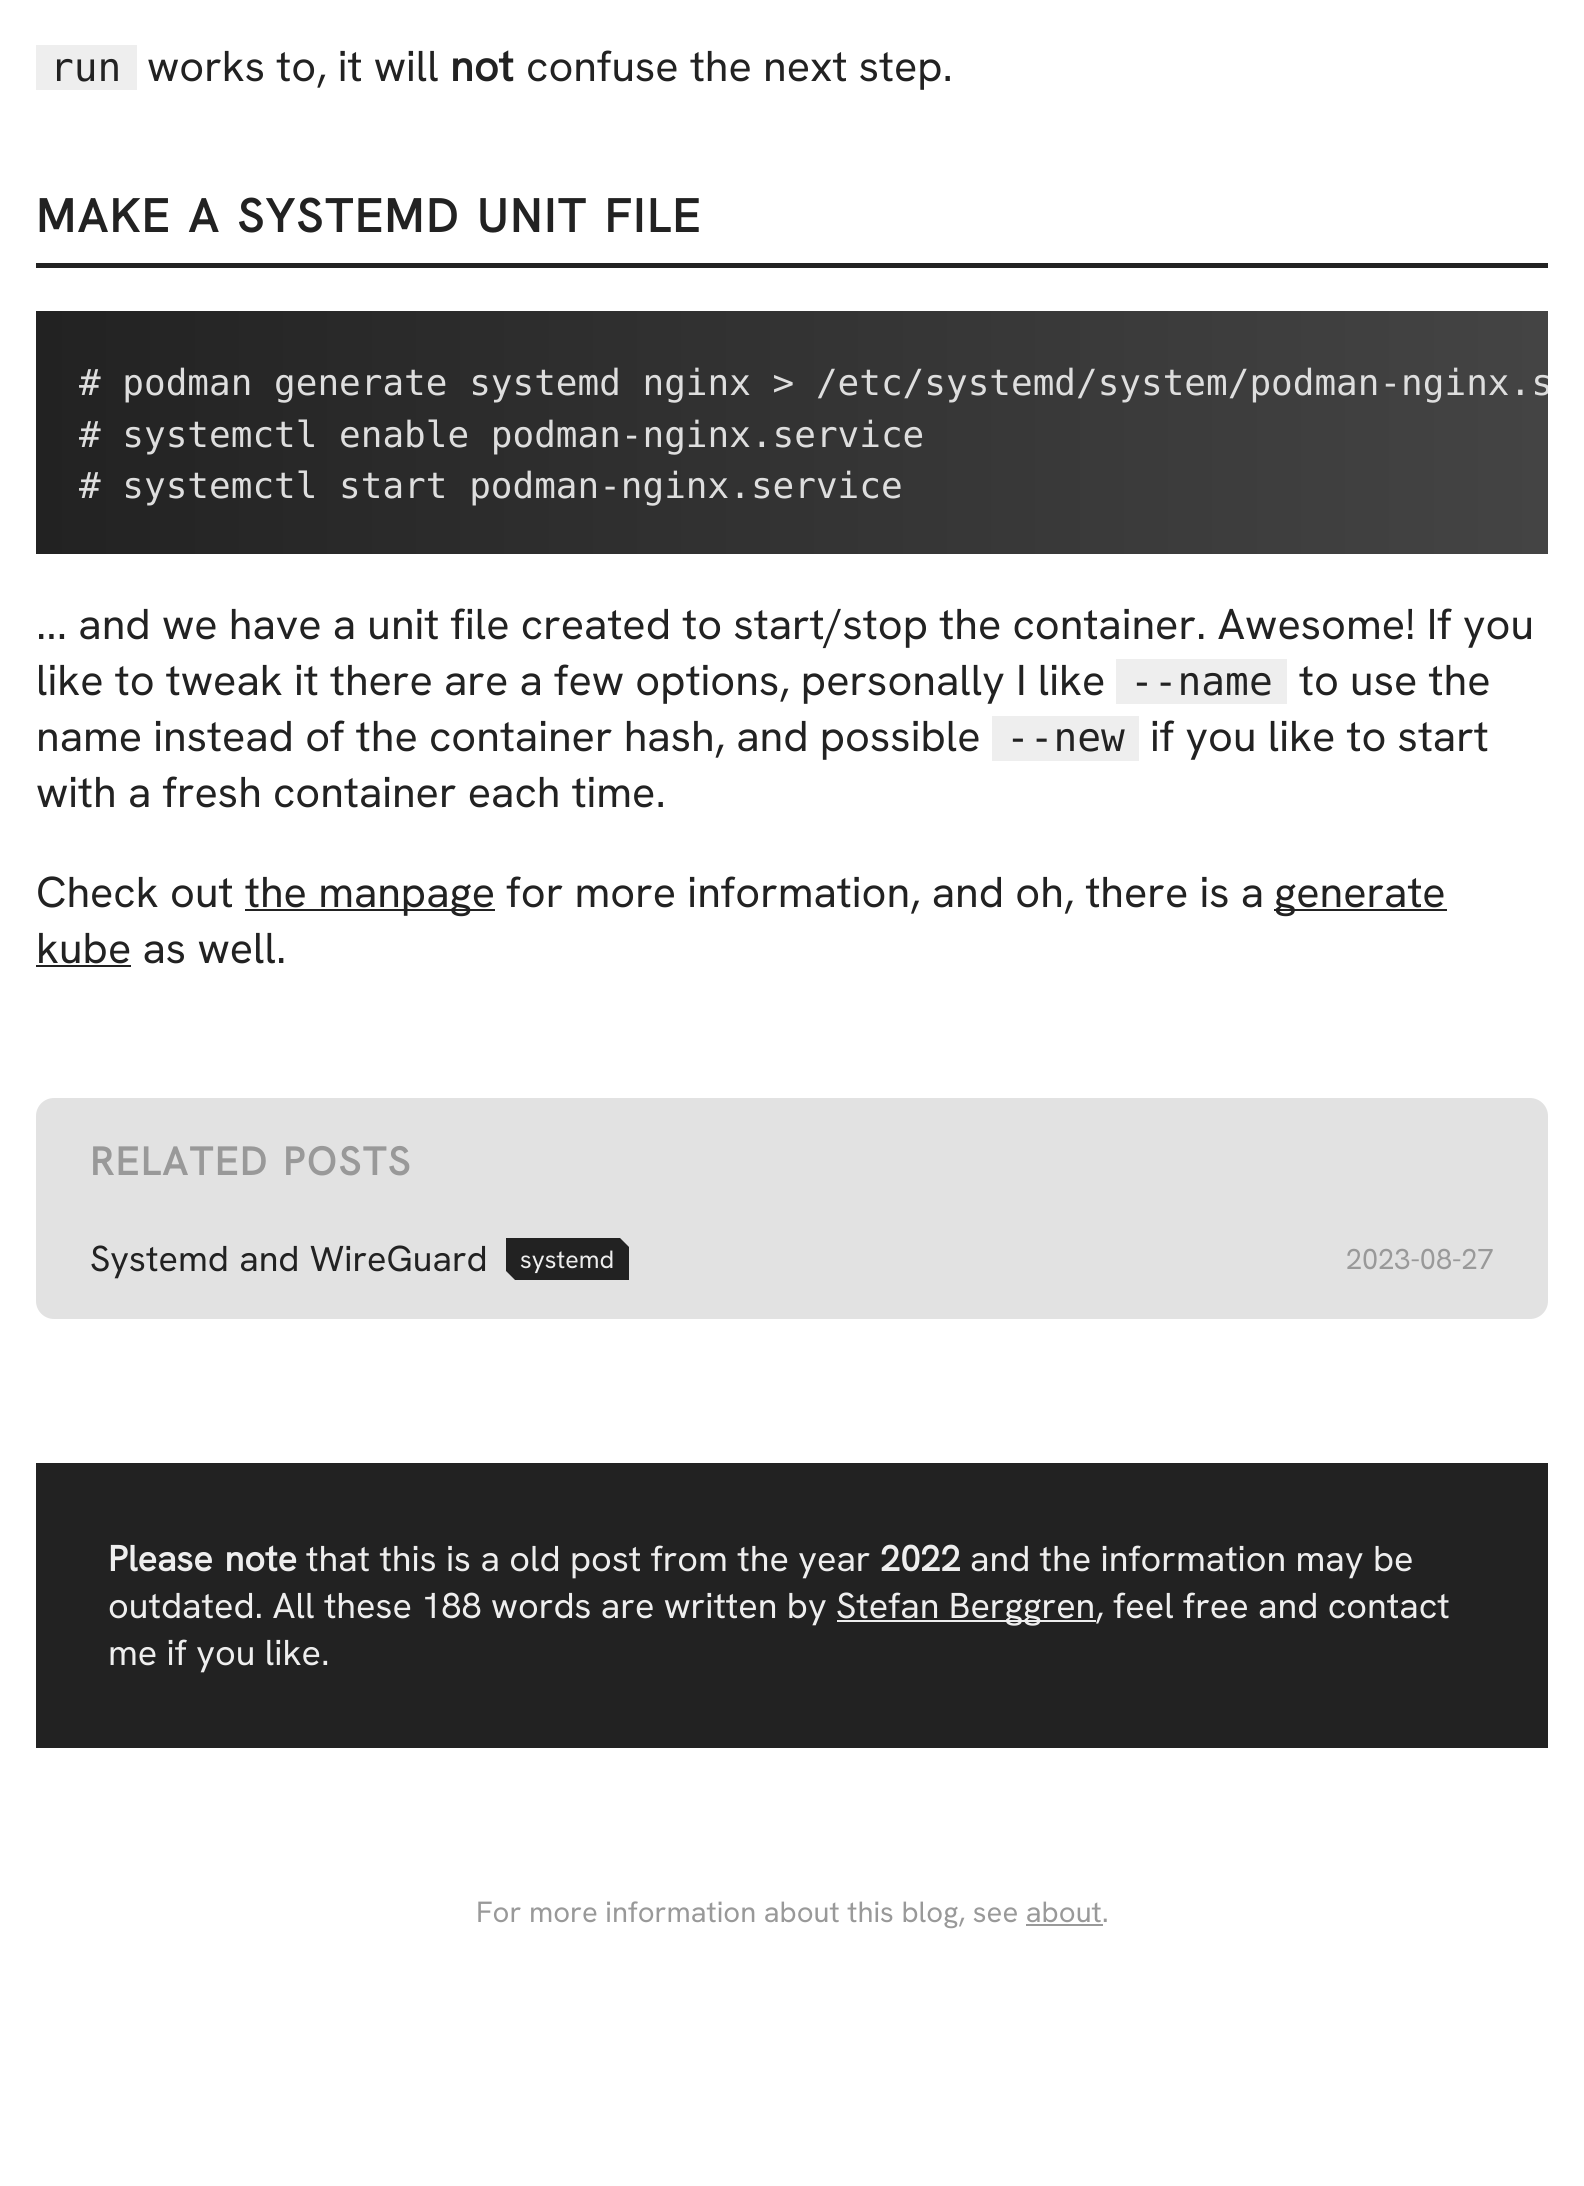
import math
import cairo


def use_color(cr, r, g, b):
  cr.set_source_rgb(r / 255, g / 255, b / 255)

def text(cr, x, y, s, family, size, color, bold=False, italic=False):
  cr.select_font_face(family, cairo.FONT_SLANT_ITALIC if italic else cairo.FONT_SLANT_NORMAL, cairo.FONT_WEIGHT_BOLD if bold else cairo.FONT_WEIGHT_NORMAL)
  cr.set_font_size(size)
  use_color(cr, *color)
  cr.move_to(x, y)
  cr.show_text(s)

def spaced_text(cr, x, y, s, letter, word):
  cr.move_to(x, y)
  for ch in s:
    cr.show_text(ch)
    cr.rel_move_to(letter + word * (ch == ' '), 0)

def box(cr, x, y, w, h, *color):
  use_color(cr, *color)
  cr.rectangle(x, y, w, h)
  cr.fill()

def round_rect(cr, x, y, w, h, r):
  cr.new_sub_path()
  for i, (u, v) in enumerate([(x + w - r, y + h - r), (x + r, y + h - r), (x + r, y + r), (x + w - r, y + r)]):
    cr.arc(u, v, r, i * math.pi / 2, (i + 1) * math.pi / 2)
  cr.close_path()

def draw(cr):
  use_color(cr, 255, 255, 255)
  cr.paint()
  box(cr, 36, 45, 101, 45, 238, 238, 238)
  box(cr, 36, 263, 1512, 5, 34, 34, 34)
  gradient = cairo.LinearGradient(36, 432, 1548, 432)
  gradient.add_color_stop_rgba(0, 0.133, 0.133, 0.133, 1)
  gradient.add_color_stop_rgba(1, 0.267, 0.267, 0.267, 1)
  cr.set_source(gradient)
  cr.rectangle(36, 311, 1512, 243)
  cr.fill()
  box(cr, 1116, 659, 171, 45, 238, 238, 238)
  box(cr, 992, 716, 147, 45, 238, 238, 238)
  box(cr, 245, 909, 250, 2, 34, 34, 34)
  box(cr, 1274, 909, 173, 2, 34, 34, 34)
  box(cr, 36, 965, 95, 2, 34, 34, 34)
  use_color(cr, 226, 226, 226)
  round_rect(cr, 36, 1098, 1512, 221, 18)
  cr.fill()
  use_color(cr, 34, 34, 34)
  cr.new_path()
  cr.move_to(506, 1238)
  cr.line_to(620, 1238)
  cr.line_to(629, 1247)
  cr.line_to(629, 1280)
  cr.line_to(515, 1280)
  cr.line_to(506, 1271)
  cr.close_path()
  cr.fill()
  box(cr, 36, 1463, 1512, 285, 34, 34, 34)
  box(cr, 837, 1620, 259, 2, 238, 238, 238)
  box(cr, 1026, 1924, 77, 2, 153, 153, 153)
  text(cr, 50, 81, "run", "DejaVu Sans Mono", 39.5, (34, 34, 34))
  text(cr, 147, 81, "works to, it will", "Hanken Grotesk", 43.2, (34, 34, 34))
  text(cr, 450, 81, "not", "Hanken Grotesk", 43.2, (34, 34, 34), bold=True)
  text(cr, 526, 81, "confuse the next step.", "Hanken Grotesk", 43.2, (34, 34, 34))
  cr.select_font_face("Hanken Grotesk", cairo.FONT_SLANT_NORMAL, cairo.FONT_WEIGHT_BOLD)
  cr.set_font_size(46.75)
  spaced_text(cr, 36, 232, "MAKE A SYSTEMD UNIT FILE", 2.3, 2.5)
  cr.save()
  cr.rectangle(36, 311, 1512, 243)
  cr.clip()
  text(cr, 79, 395, "# podman generate systemd nginx > /etc/systemd/system/podman-nginx.s", "DejaVu Sans Mono", 36, (222, 222, 222))
  cr.restore()
  text(cr, 79, 447, "# systemctl enable podman-nginx.service", "DejaVu Sans Mono", 36, (222, 222, 222))
  text(cr, 79, 498, "# systemctl start podman-nginx.service", "DejaVu Sans Mono", 36, (222, 222, 222))
  text(cr, 36, 639, "... and we have a unit file created to start/stop the container. Awesome! If you", "Hanken Grotesk", 43.2, (34, 34, 34))
  text(cr, 36, 695, "like to tweak it there are a few options, personally I like", "Hanken Grotesk", 43.2, (34, 34, 34))
  text(cr, 1130, 695, "--name", "DejaVu Sans Mono", 39.5, (34, 34, 34))
  text(cr, 1299, 695, "to use the", "Hanken Grotesk", 43.2, (34, 34, 34))
  text(cr, 36, 751, "name instead of the container hash, and possible", "Hanken Grotesk", 43.2, (34, 34, 34))
  text(cr, 1006, 751, "--new", "DejaVu Sans Mono", 39.5, (34, 34, 34))
  text(cr, 1150, 751, "if you like to start", "Hanken Grotesk", 43.2, (34, 34, 34))
  text(cr, 36, 807, "with a fresh container each time.", "Hanken Grotesk", 43.2, (34, 34, 34))
  text(cr, 36, 907, "Check out", "Hanken Grotesk", 43.2, (34, 34, 34))
  text(cr, 245, 907, "the manpage for more information, and oh, there is a", "Hanken Grotesk", 43.2, (34, 34, 34))
  text(cr, 1274, 907, "generate", "Hanken Grotesk", 43.2, (34, 34, 34))
  text(cr, 36, 963, "kube as well.", "Hanken Grotesk", 43.2, (34, 34, 34))
  cr.select_font_face("Hanken Grotesk", cairo.FONT_SLANT_NORMAL, cairo.FONT_WEIGHT_BOLD)
  cr.set_font_size(39.5)
  use_color(cr, 153, 153, 153)
  spaced_text(cr, 90, 1175, "RELATED POSTS", 2, 2)
  cr.select_font_face("Hanken Grotesk")
  cr.set_font_size(36)
  use_color(cr, 34, 34, 34)
  spaced_text(cr, 90, 1271, "Systemd and WireGuard", 0, 1)
  text(cr, 520, 1268, "systemd", "Hanken Grotesk", 25, (238, 238, 238))
  text(cr, 1346, 1269, "2023-08-27", "Hanken Grotesk", 28.75, (153, 153, 153))
  cr.select_font_face("Hanken Grotesk", cairo.FONT_SLANT_NORMAL, cairo.FONT_WEIGHT_BOLD)
  cr.set_font_size(36)
  use_color(cr, 238, 238, 238)
  spaced_text(cr, 108, 1571, "Please note", 0, 2.5)
  text(cr, 306, 1571, "that this is a old post from the year", "Hanken Grotesk", 36, (238, 238, 238))
  text(cr, 880, 1571, "2022", "Hanken Grotesk", 36, (238, 238, 238), bold=True)
  text(cr, 970, 1571, "and the information may be", "Hanken Grotesk", 36, (238, 238, 238))
  text(cr, 108, 1618, "outdated. All these 188 words are written by", "Hanken Grotesk", 36, (238, 238, 238))
  text(cr, 836, 1618, "Stefan Berggren, feel free and contact", "Hanken Grotesk", 36, (238, 238, 238))
  text(cr, 108, 1665, "me if you like.", "Hanken Grotesk", 36, (238, 238, 238))
  text(cr, 476, 1922, "For more information about this blog, see about.", "Hanken Grotesk", 29.25, (153, 153, 153))


surface = cairo.ImageSurface(cairo.FORMAT_RGB24, 1584, 2186)
cr = cairo.Context(surface)
options = cairo.FontOptions()
options.set_hint_metrics(cairo.HINT_METRICS_OFF)
options.set_hint_style(cairo.HINT_STYLE_NONE)
cr.set_font_options(options)
cr.set_miter_limit(4)
draw(cr)
surface.write_to_png("out.png")
